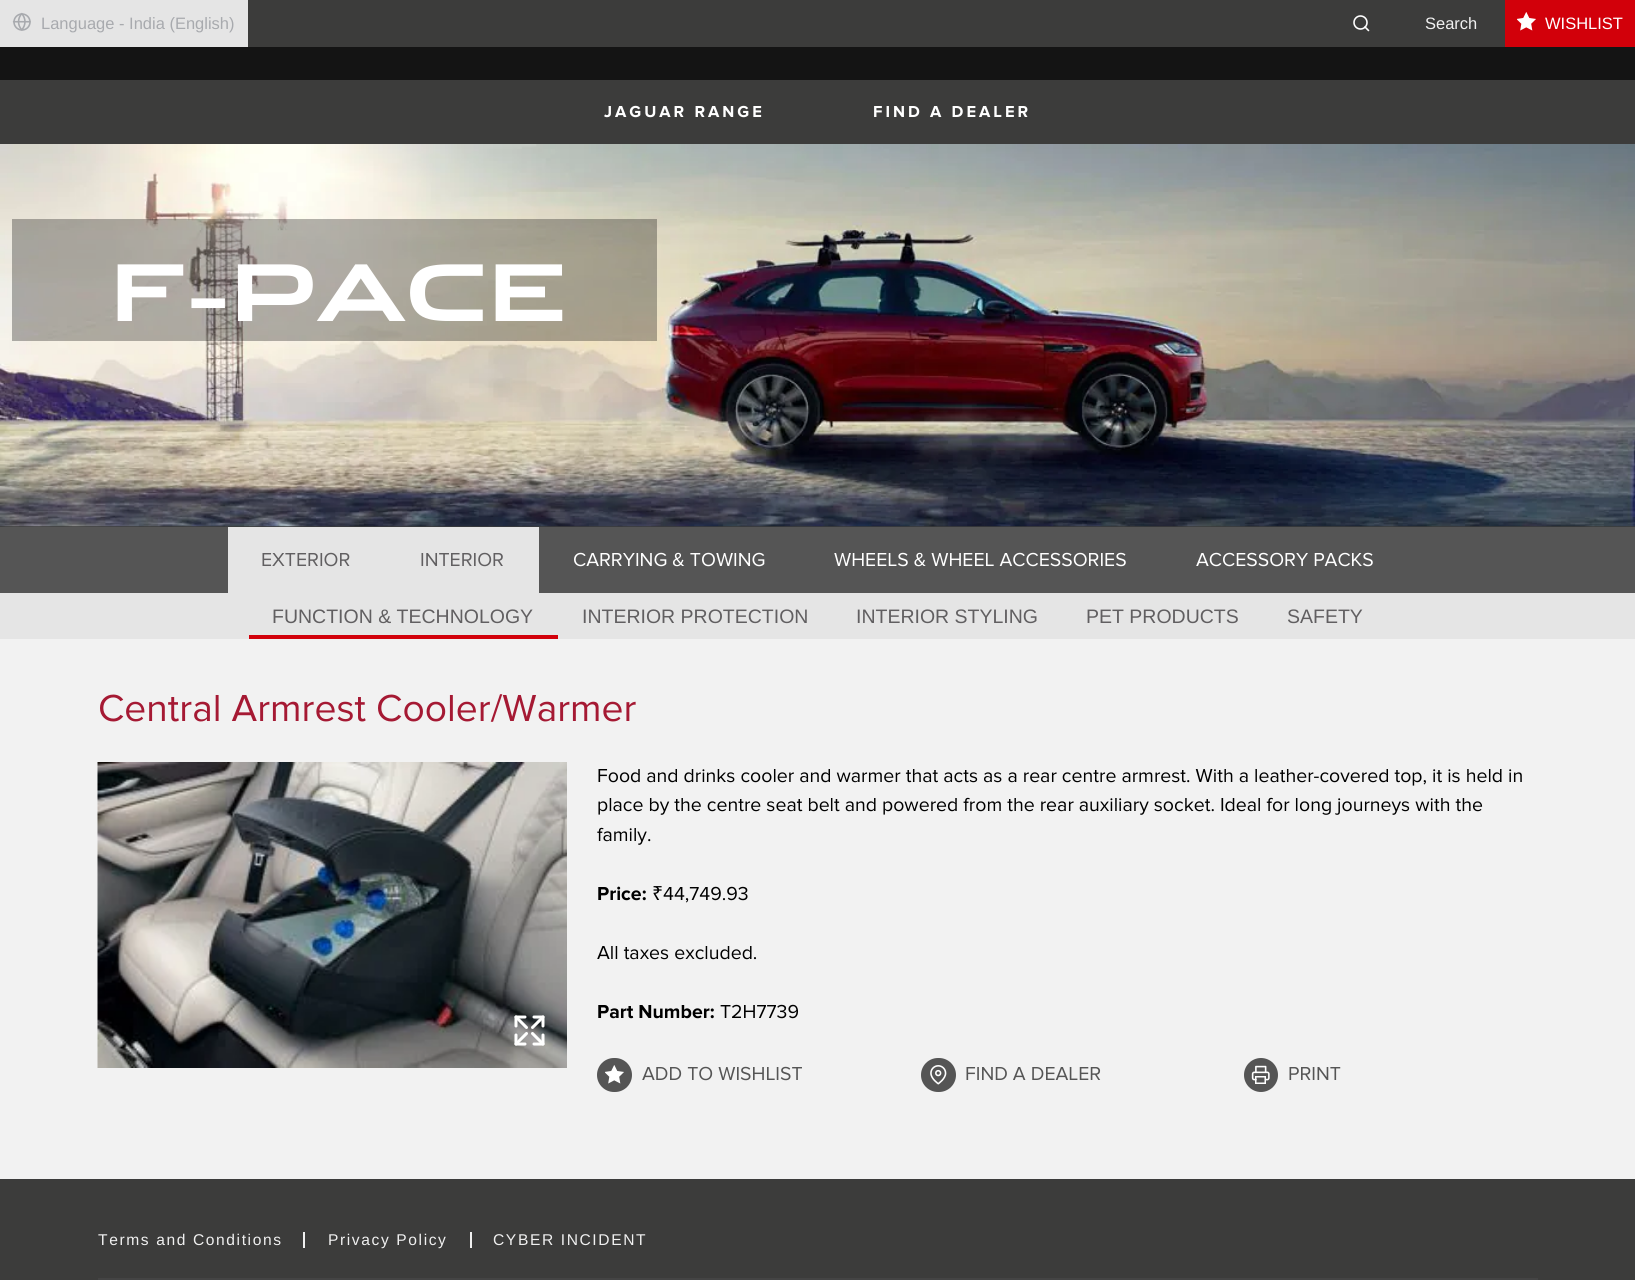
import math
import cairo


def use_color(cr, r, g, b):
  cr.set_source_rgb(r / 255, g / 255, b / 255)

def text(cr, x, y, s, family, size, color, bold=False, italic=False):
  cr.select_font_face(family, cairo.FONT_SLANT_ITALIC if italic else cairo.FONT_SLANT_NORMAL, cairo.FONT_WEIGHT_BOLD if bold else cairo.FONT_WEIGHT_NORMAL)
  cr.set_font_size(size)
  use_color(cr, *color)
  cr.move_to(x, y)
  cr.show_text(s)

def spaced_text(cr, x, y, s, letter, word):
  cr.move_to(x, y)
  for ch in s:
    cr.show_text(ch)
    cr.rel_move_to(letter + word * (ch == ' '), 0)

def box(cr, x, y, w, h, *color):
  use_color(cr, *color)
  cr.rectangle(x, y, w, h)
  cr.fill()

def round_rect(cr, x, y, w, h, r):
  cr.new_sub_path()
  for i, (u, v) in enumerate([(x + w - r, y + h - r), (x + r, y + h - r), (x + r, y + r), (x + w - r, y + r)]):
    cr.arc(u, v, r, i * math.pi / 2, (i + 1) * math.pi / 2)
  cr.close_path()

def picture(cr, path, x, y, w, h):
  cr.save()
  cr.set_source_surface(cairo.ImageSurface.create_from_png(path), x, y)
  cr.rectangle(x, y, w, h)
  cr.fill()
  cr.restore()

def draw(cr):
  use_color(cr, 20, 20, 20)
  cr.paint()
  box(cr, 248, 0, 1257, 47, 60, 60, 59)
  box(cr, 0, 0, 248, 47, 229, 229, 229)
  picture(cr, "img_01.png", 12, 12, 19, 19)
  cr.arc(1360.5, 22.5, 6.5, 0, 2 * math.pi)
  use_color(cr, 255, 255, 255)
  cr.set_line_width(1.6)
  cr.stroke()
  cr.new_path()
  cr.move_to(1368.5, 30.5)
  cr.line_to(1365, 27)
  cr.set_line_cap(cairo.LINE_CAP_ROUND)
  cr.set_line_join(cairo.LINE_JOIN_ROUND)
  cr.stroke()
  box(cr, 1505, 0, 130, 47, 210, 0, 10)
  picture(cr, "img_02.png", 1517, 12, 19, 19)
  box(cr, 0, 80, 1635, 64, 60, 60, 59)
  box(cr, 0, 526, 1635, 1, 60, 60, 59)
  picture(cr, "img_03.png", 0, 144, 1635, 383)
  cr.set_source_rgba(0, 0, 0, 0.3)
  cr.rectangle(12, 219, 645, 122)
  cr.fill()
  box(cr, 0, 527, 1635, 66, 85, 85, 85)
  box(cr, 228, 527, 311, 66, 229, 229, 229)
  box(cr, 0, 593, 1635, 46, 229, 229, 229)
  gradient = cairo.LinearGradient(404, 593, 404, 639)
  gradient.add_color_stop_rgba(0, 0.898, 0.898, 0.898, 1)
  gradient.add_color_stop_rgba(0.92, 0.898, 0.898, 0.898, 1)
  gradient.add_color_stop_rgba(0.92, 0.824, 0, 0.039, 1)
  gradient.add_color_stop_rgba(1, 0.824, 0, 0.039, 1)
  cr.set_source(gradient)
  cr.rectangle(249, 635, 309, 4)
  cr.fill()
  box(cr, 0, 639, 1635, 540, 242, 242, 242)
  picture(cr, "img_04.png", 97, 762, 470, 306)
  picture(cr, "img_05.png", 514, 1015, 31, 31)
  use_color(cr, 85, 85, 85)
  round_rect(cr, 597, 1058, 35, 34, 17)
  cr.fill()
  picture(cr, "img_06.png", 605, 1065, 19, 19)
  round_rect(cr, 921, 1058, 35, 34, 17)
  cr.fill()
  picture(cr, "img_07.png", 930, 1065, 17, 20)
  cr.arc(1261, 1075, 17, 0, 2 * math.pi)
  cr.fill()
  picture(cr, "img_08.png", 1251, 1065, 19, 19)
  box(cr, 0, 1179, 1635, 101, 60, 60, 59)
  box(cr, 303, 1232, 2, 16, 240, 240, 240)
  box(cr, 470, 1232, 2, 16, 240, 240, 240)
  box(cr, 98, 1278, 1440, 2, 68, 68, 68)
  text(cr, 41, 29, "Language - India (English)", "Liberation Sans", 16.5, (168, 170, 174))
  text(cr, 1425, 29, "Search", "Liberation Sans", 16.5, (240, 240, 240))
  text(cr, 1545, 29, "WISHLIST", "Liberation Sans", 16.5, (255, 255, 255))
  cr.select_font_face("Proxima Nova", cairo.FONT_SLANT_NORMAL, cairo.FONT_WEIGHT_BOLD)
  spaced_text(cr, 604, 117, "JAGUAR RANGE", 3, 0)
  spaced_text(cr, 873, 117, "FIND A DEALER", 3, 0)
  text(cr, 110, 321, "F-PACE", "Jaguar", 78, (255, 255, 255), bold=True)
  text(cr, 261, 566, "EXTERIOR", "Proxima Nova", 19.5, (97, 95, 97))
  text(cr, 420, 566, "INTERIOR", "Proxima Nova", 19.5, (97, 95, 97))
  text(cr, 573, 566, "CARRYING & TOWING", "Proxima Nova", 19.5, (255, 255, 255))
  text(cr, 834, 566, "WHEELS & WHEEL ACCESSORIES", "Proxima Nova", 19.5, (255, 255, 255))
  text(cr, 1196, 566, "ACCESSORY PACKS", "Proxima Nova", 19.5, (255, 255, 255))
  text(cr, 272, 623, "FUNCTION & TECHNOLOGY", "Liberation Sans", 19.5, (97, 95, 97))
  text(cr, 582, 623, "INTERIOR PROTECTION", "Liberation Sans", 19.5, (97, 95, 97))
  text(cr, 856, 623, "INTERIOR STYLING", "Liberation Sans", 19.5, (97, 95, 97))
  text(cr, 1086, 623, "PET PRODUCTS", "Liberation Sans", 19.5, (97, 95, 97))
  text(cr, 1287, 623, "SAFETY", "Liberation Sans", 19.5, (97, 95, 97))
  text(cr, 98, 721, "Central Armrest Cooler/Warmer", "Proxima Nova", 39, (165, 25, 51))
  text(cr, 597, 782, "Food and drinks cooler and warmer that acts as a rear centre armrest. With a leather-covered top, it is held in", "Proxima Nova", 19.5, (0, 0, 0))
  text(cr, 597, 811, "place by the centre seat belt and powered from the rear auxiliary socket. Ideal for long journeys with the", "Proxima Nova", 19.5, (0, 0, 0))
  text(cr, 597, 841, "family.", "Proxima Nova", 19.5, (0, 0, 0))
  text(cr, 597, 900, "Price:", "Proxima Nova", 19.5, (0, 0, 0), bold=True)
  text(cr, 652, 900, "₹", "Noto Sans", 19.5, (0, 0, 0))
  text(cr, 663, 900, "44,749.93", "Proxima Nova", 19.5, (0, 0, 0))
  text(cr, 597, 959, "All taxes excluded.", "Proxima Nova", 19.5, (0, 0, 0))
  text(cr, 597, 1018, "Part Number:", "Proxima Nova", 19.5, (0, 0, 0), bold=True)
  text(cr, 720, 1018, "T2H7739", "Proxima Nova", 19.5, (0, 0, 0))
  text(cr, 642, 1080, "ADD TO WISHLIST", "Proxima Nova", 19.5, (85, 85, 85))
  text(cr, 965, 1080, "FIND A DEALER", "Proxima Nova", 19.5, (85, 85, 85))
  text(cr, 1288, 1080, "PRINT", "Proxima Nova", 19.5, (85, 85, 85))
  cr.select_font_face("Liberation Sans")
  cr.set_font_size(15.6)
  use_color(cr, 240, 240, 240)
  spaced_text(cr, 98, 1245, "Terms and Conditions", 1.6, 0)
  spaced_text(cr, 328, 1245, "Privacy Policy", 1.6, 0)
  spaced_text(cr, 493, 1245, "CYBER INCIDENT", 1.6, 0)


surface = cairo.ImageSurface(cairo.FORMAT_RGB24, 1635, 1280)
cr = cairo.Context(surface)
options = cairo.FontOptions()
options.set_hint_metrics(cairo.HINT_METRICS_OFF)
options.set_hint_style(cairo.HINT_STYLE_NONE)
cr.set_font_options(options)
cr.set_miter_limit(4)
draw(cr)
surface.write_to_png("out.png")
